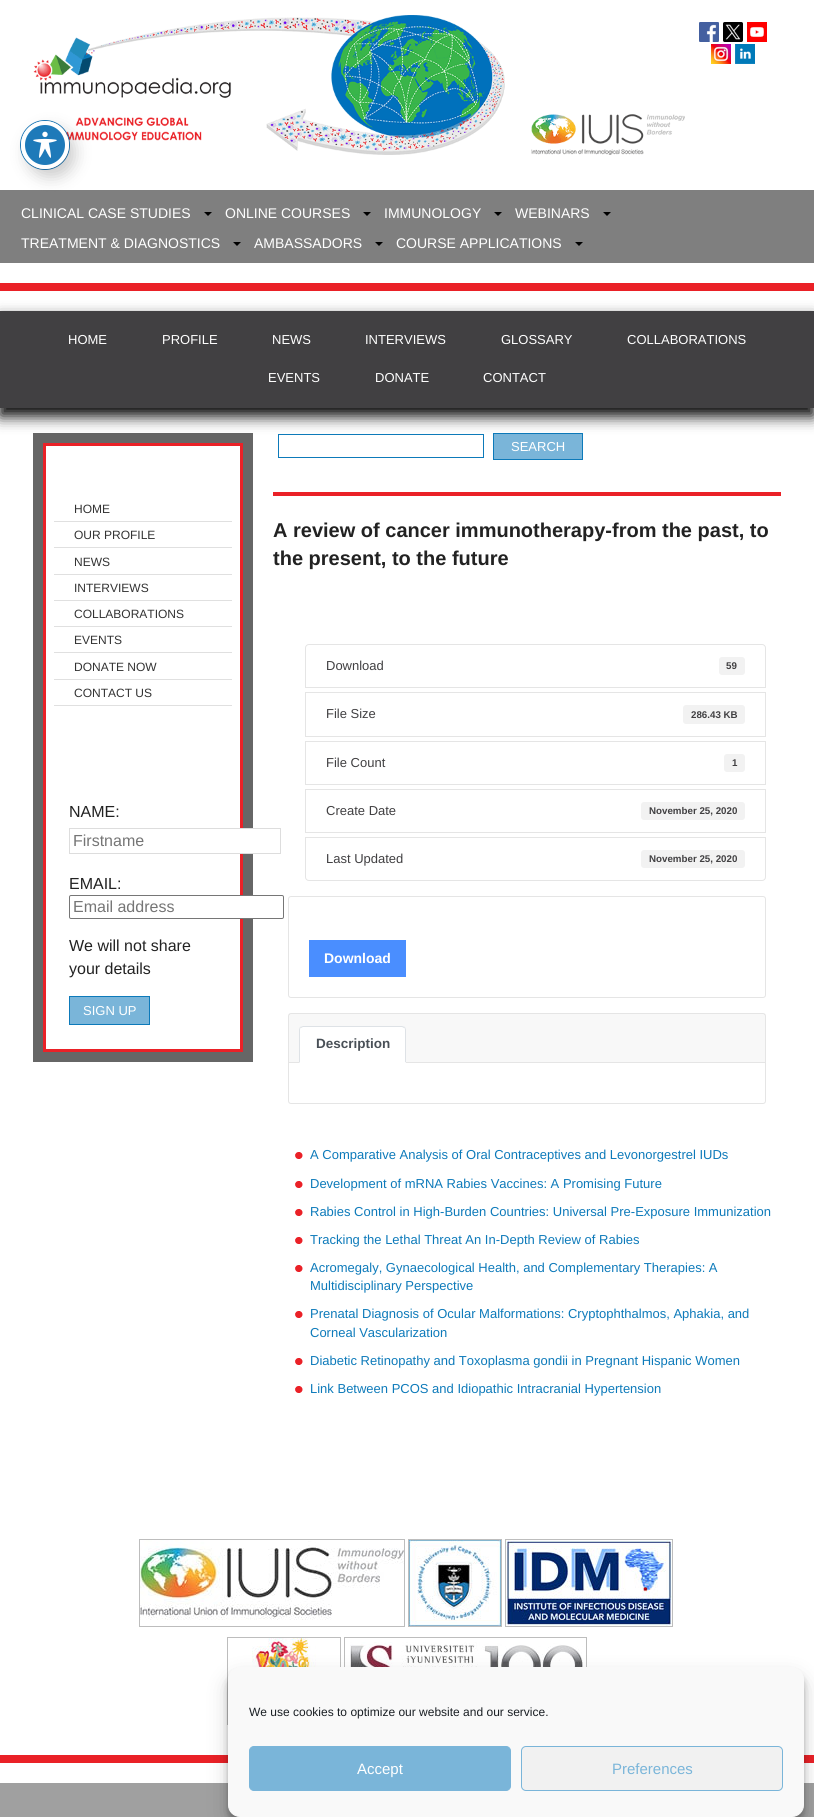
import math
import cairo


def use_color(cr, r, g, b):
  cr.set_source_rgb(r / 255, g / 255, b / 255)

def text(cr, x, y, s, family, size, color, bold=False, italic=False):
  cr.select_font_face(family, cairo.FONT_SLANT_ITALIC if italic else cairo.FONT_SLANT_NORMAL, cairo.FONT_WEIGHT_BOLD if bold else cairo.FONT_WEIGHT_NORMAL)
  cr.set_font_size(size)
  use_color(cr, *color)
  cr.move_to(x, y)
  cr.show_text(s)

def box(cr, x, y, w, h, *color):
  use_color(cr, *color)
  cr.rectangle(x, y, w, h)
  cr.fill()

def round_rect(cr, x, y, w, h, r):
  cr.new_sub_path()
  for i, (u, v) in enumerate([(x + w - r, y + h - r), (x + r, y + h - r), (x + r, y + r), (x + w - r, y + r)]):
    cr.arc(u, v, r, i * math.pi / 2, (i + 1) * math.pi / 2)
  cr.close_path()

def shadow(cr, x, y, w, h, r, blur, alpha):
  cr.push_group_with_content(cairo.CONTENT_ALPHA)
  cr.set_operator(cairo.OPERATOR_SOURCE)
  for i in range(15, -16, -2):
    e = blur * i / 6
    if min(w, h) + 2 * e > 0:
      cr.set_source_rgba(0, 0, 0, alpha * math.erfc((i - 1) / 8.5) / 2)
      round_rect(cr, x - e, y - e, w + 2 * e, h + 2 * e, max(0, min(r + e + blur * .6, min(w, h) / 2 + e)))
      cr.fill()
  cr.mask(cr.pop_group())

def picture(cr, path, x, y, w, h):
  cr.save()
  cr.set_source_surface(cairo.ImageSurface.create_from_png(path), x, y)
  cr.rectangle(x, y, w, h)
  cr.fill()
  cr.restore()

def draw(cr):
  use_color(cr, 255, 255, 255)
  cr.paint()
  picture(cr, "img_01.png", 33, 15, 652, 140)
  picture(cr, "img_02.png", 699, 22, 20, 20)
  picture(cr, "img_03.png", 723, 22, 20, 20)
  picture(cr, "img_04.png", 747, 22, 20, 20)
  picture(cr, "img_05.png", 711, 44, 20, 20)
  picture(cr, "img_06.png", 735, 44, 20, 20)
  cr.arc(45, 145, 24.5, 0, 2 * math.pi)
  use_color(cr, 30, 122, 185)
  cr.set_line_width(1)
  cr.stroke()
  box(cr, 0, 190, 814, 73, 127, 127, 127)
  use_color(cr, 0, 0, 0)
  shadow(cr, 27, 129, 48, 48, 24, 8, 0.2)
  use_color(cr, 30, 122, 185)
  cr.arc(45, 145, 22, 0, 2 * math.pi)
  cr.fill_preserve()
  use_color(cr, 255, 255, 255)
  cr.set_line_width(4)
  cr.stroke()
  picture(cr, "img_07.png", 33, 131, 24, 27)
  use_color(cr, 0, 0, 0)
  cr.new_path()
  cr.move_to(204, 212)
  cr.line_to(212, 212)
  cr.line_to(208, 216)
  cr.close_path()
  cr.fill()
  cr.new_path()
  cr.move_to(363, 212)
  cr.line_to(371, 212)
  cr.line_to(367, 216)
  cr.close_path()
  cr.fill()
  cr.new_path()
  cr.move_to(494, 212)
  cr.line_to(502, 212)
  cr.line_to(498, 216)
  cr.close_path()
  cr.fill()
  cr.new_path()
  cr.move_to(603, 212)
  cr.line_to(611, 212)
  cr.line_to(607, 216)
  cr.close_path()
  cr.fill()
  cr.new_path()
  cr.move_to(233, 242)
  cr.line_to(241, 242)
  cr.line_to(237, 246)
  cr.close_path()
  cr.fill()
  cr.new_path()
  cr.move_to(375, 242)
  cr.line_to(383, 242)
  cr.line_to(379, 246)
  cr.close_path()
  cr.fill()
  cr.new_path()
  cr.move_to(575, 242)
  cr.line_to(583, 242)
  cr.line_to(579, 246)
  cr.close_path()
  cr.fill()
  box(cr, 0, 283, 814, 8, 234, 33, 39)
  box(cr, 33, 433, 220, 629, 102, 102, 102)
  cr.rectangle(278.5, 434.5, 205, 23)
  use_color(cr, 13, 122, 186)
  cr.set_line_width(1)
  cr.stroke()
  use_color(cr, 122, 181, 217)
  cr.rectangle(493.5, 433.5, 89, 26)
  cr.fill_preserve()
  use_color(cr, 13, 122, 186)
  cr.stroke()
  use_color(cr, 0, 0, 0)
  shadow(cr, 0, 319, 814, 97, 0, 7.5, 1)
  box(cr, 0, 311, 814, 97, 65, 64, 66)
  use_color(cr, 255, 255, 255)
  cr.rectangle(44.5, 444.5, 197, 606)
  cr.fill_preserve()
  use_color(cr, 234, 33, 39)
  cr.set_line_width(3)
  cr.stroke()
  box(cr, 54, 521, 178, 1, 224, 224, 224)
  box(cr, 54, 547, 178, 1, 224, 224, 224)
  box(cr, 54, 574, 178, 1, 224, 224, 224)
  box(cr, 54, 600, 178, 1, 224, 224, 224)
  box(cr, 54, 626, 178, 1, 224, 224, 224)
  box(cr, 54, 652, 178, 1, 224, 224, 224)
  box(cr, 54, 679, 178, 1, 224, 224, 224)
  box(cr, 54, 705, 178, 1, 224, 224, 224)
  box(cr, 240, 829, 13, 24, 255, 255, 255)
  cr.rectangle(69.5, 828.5, 211, 25)
  use_color(cr, 221, 221, 221)
  cr.set_line_width(1)
  cr.stroke()
  use_color(cr, 255, 255, 255)
  round_rect(cr, 69.5, 895.5, 214, 23, 1.5)
  cr.fill_preserve()
  use_color(cr, 118, 118, 118)
  cr.stroke()
  use_color(cr, 122, 181, 217)
  cr.rectangle(69.5, 996.5, 80, 28)
  cr.fill_preserve()
  use_color(cr, 13, 122, 186)
  cr.stroke()
  box(cr, 273, 492, 508, 4, 234, 33, 39)
  cr.new_path()
  cr.move_to(309, 644.5)
  cr.line_to(762, 644.5)
  cr.curve_to(764, 644.5, 765.5, 646, 765.5, 648)
  cr.line_to(765.5, 687.5)
  cr.line_to(305.5, 687.5)
  cr.line_to(305.5, 648)
  cr.curve_to(305.5, 646, 307, 644.5, 309, 644.5)
  cr.close_path()
  use_color(cr, 229, 229, 229)
  cr.stroke()
  use_color(cr, 242, 242, 242)
  round_rect(cr, 719, 657, 26, 18, 3)
  cr.fill()
  cr.rectangle(305.5, 692.5, 460, 44)
  use_color(cr, 229, 229, 229)
  cr.stroke()
  use_color(cr, 242, 242, 242)
  round_rect(cr, 683, 705, 62, 19, 3)
  cr.fill()
  cr.rectangle(305.5, 741.5, 460, 43)
  use_color(cr, 229, 229, 229)
  cr.stroke()
  use_color(cr, 242, 242, 242)
  round_rect(cr, 724, 754, 21, 18, 3)
  cr.fill()
  cr.rectangle(305.5, 789.5, 460, 43)
  use_color(cr, 229, 229, 229)
  cr.stroke()
  use_color(cr, 242, 242, 242)
  round_rect(cr, 641, 802, 104, 18, 3)
  cr.fill()
  cr.new_path()
  cr.move_to(305.5, 837.5)
  cr.line_to(765.5, 837.5)
  cr.line_to(765.5, 877)
  cr.curve_to(765.5, 879, 764, 880.5, 762, 880.5)
  cr.line_to(309, 880.5)
  cr.curve_to(307, 880.5, 305.5, 879, 305.5, 877)
  cr.close_path()
  use_color(cr, 229, 229, 229)
  cr.stroke()
  use_color(cr, 242, 242, 242)
  round_rect(cr, 641, 850, 104, 18, 3)
  cr.fill()
  round_rect(cr, 288.5, 896.5, 477, 101, 2.5)
  use_color(cr, 229, 229, 229)
  cr.stroke()
  box(cr, 309, 940, 97, 37, 74, 142, 255)
  round_rect(cr, 288.5, 1013.5, 477, 90, 2.5)
  use_color(cr, 229, 229, 229)
  cr.stroke()
  cr.set_source_rgba(0, 0, 0, 0.03)
  cr.rectangle(289, 1014, 476, 48)
  cr.fill()
  box(cr, 289, 1062, 476, 1, 229, 229, 229)
  use_color(cr, 255, 255, 255)
  cr.new_path()
  cr.move_to(303, 1026)
  cr.line_to(402, 1026)
  cr.curve_to(404, 1026, 406, 1028, 406, 1030)
  cr.line_to(406, 1063)
  cr.line_to(299, 1063)
  cr.line_to(299, 1030)
  cr.curve_to(299, 1028, 301, 1026, 303, 1026)
  cr.close_path()
  cr.fill()
  use_color(cr, 222, 226, 230)
  cr.new_path()
  cr.move_to(303, 1026)
  cr.line_to(300, 1027)
  cr.line_to(301, 1028)
  cr.line_to(303, 1027)
  cr.line_to(402, 1027)
  cr.line_to(404, 1028)
  cr.line_to(405, 1027)
  cr.line_to(402, 1026)
  cr.close_path()
  cr.fill()
  cr.new_path()
  cr.move_to(406, 1063)
  cr.line_to(406, 1030)
  cr.curve_to(406, 1029, 405.5, 1028, 405, 1027)
  cr.line_to(404, 1028)
  cr.curve_to(405, 1028, 405, 1029, 405, 1030)
  cr.line_to(405, 1062)
  cr.close_path()
  cr.fill()
  use_color(cr, 255, 255, 255)
  cr.new_path()
  cr.move_to(406, 1063)
  cr.line_to(405, 1062)
  cr.line_to(300, 1062)
  cr.line_to(299, 1063)
  cr.close_path()
  cr.fill()
  use_color(cr, 222, 226, 230)
  cr.new_path()
  cr.move_to(299, 1063)
  cr.line_to(300, 1062)
  cr.line_to(300, 1030)
  cr.curve_to(300, 1029, 300, 1028, 301, 1028)
  cr.line_to(300, 1027)
  cr.curve_to(299.5, 1028, 299, 1029, 299, 1030)
  cr.close_path()
  cr.fill()
  picture(cr, "img_08.png", 295, 1152, 8, 7)
  picture(cr, "img_08.png", 295, 1181, 8, 7)
  picture(cr, "img_08.png", 295, 1209, 8, 7)
  picture(cr, "img_08.png", 295, 1237, 8, 7)
  picture(cr, "img_08.png", 295, 1265, 8, 7)
  picture(cr, "img_08.png", 295, 1311, 8, 7)
  picture(cr, "img_08.png", 295, 1358, 8, 7)
  picture(cr, "img_08.png", 295, 1386, 8, 7)
  cr.rectangle(139.5, 1539.5, 265, 87)
  use_color(cr, 189, 189, 189)
  cr.stroke()
  cr.rectangle(408.5, 1539.5, 93, 87)
  cr.stroke()
  cr.rectangle(505.5, 1539.5, 167, 87)
  cr.stroke()
  picture(cr, "img_09.png", 140, 1540, 264, 80)
  picture(cr, "img_10.png", 409, 1540, 92, 86)
  picture(cr, "img_11.png", 506, 1540, 166, 86)
  cr.rectangle(227.5, 1637.5, 113, 87)
  cr.stroke()
  cr.rectangle(344.5, 1637.5, 242, 87)
  cr.stroke()
  picture(cr, "img_12.png", 228, 1638, 112, 41)
  picture(cr, "img_13.png", 350, 1642, 234, 25)
  box(cr, 0, 1755, 814, 8, 234, 33, 39)
  box(cr, 0, 1783, 814, 34, 160, 160, 160)
  use_color(cr, 0, 0, 0)
  shadow(cr, 228, 1673, 576, 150, 12, 3, 0.23)
  shadow(cr, 228, 1677, 576, 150, 12, 10, 0.19)
  use_color(cr, 249, 249, 249)
  round_rect(cr, 228.5, 1667.5, 575, 149, 11.5)
  cr.fill_preserve()
  cr.stroke()
  use_color(cr, 122, 181, 217)
  round_rect(cr, 249.5, 1746.5, 261, 44, 4.5)
  cr.fill_preserve()
  cr.stroke()
  use_color(cr, 241, 241, 241)
  round_rect(cr, 521.5, 1746.5, 261, 44, 4.5)
  cr.fill_preserve()
  use_color(cr, 122, 181, 217)
  cr.stroke()
  text(cr, 21, 218, "CLINICAL CASE STUDIES", "Liberation Sans", 14, (255, 255, 255))
  text(cr, 225, 218, "ONLINE COURSES", "Liberation Sans", 14, (255, 255, 255))
  text(cr, 384, 218, "IMMUNOLOGY", "Liberation Sans", 14, (255, 255, 255))
  text(cr, 515, 218, "WEBINARS", "Liberation Sans", 14, (255, 255, 255))
  text(cr, 21, 248, "TREATMENT & DIAGNOSTICS", "Liberation Sans", 14, (255, 255, 255))
  text(cr, 254, 248, "AMBASSADORS", "Liberation Sans", 14, (255, 255, 255))
  text(cr, 396, 248, "COURSE APPLICATIONS", "Liberation Sans", 14, (255, 255, 255))
  text(cr, 68, 344, "HOME", "Liberation Sans", 13, (255, 255, 255))
  text(cr, 162, 344, "PROFILE", "Liberation Sans", 13, (255, 255, 255))
  text(cr, 272, 344, "NEWS", "Liberation Sans", 13, (255, 255, 255))
  text(cr, 365, 344, "INTERVIEWS", "Liberation Sans", 13, (255, 255, 255))
  text(cr, 501, 344, "GLOSSARY", "Liberation Sans", 13, (255, 255, 255))
  text(cr, 627, 344, "COLLABORATIONS", "Liberation Sans", 13, (255, 255, 255))
  text(cr, 268, 382, "EVENTS", "Liberation Sans", 13, (255, 255, 255))
  text(cr, 375, 382, "DONATE", "Liberation Sans", 13, (255, 255, 255))
  text(cr, 483, 382, "CONTACT", "Liberation Sans", 13, (255, 255, 255))
  text(cr, 74, 513, "HOME", "Arimo", 12, (51, 51, 51))
  text(cr, 74, 539, "OUR PROFILE", "Arimo", 12, (51, 51, 51))
  text(cr, 74, 566, "NEWS", "Arimo", 12, (51, 51, 51))
  text(cr, 74, 592, "INTERVIEWS", "Arimo", 12, (51, 51, 51))
  text(cr, 74, 618, "COLLABORATIONS", "Arimo", 12, (51, 51, 51))
  text(cr, 74, 644, "EVENTS", "Arimo", 12, (51, 51, 51))
  text(cr, 74, 671, "DONATE NOW", "Arimo", 12, (51, 51, 51))
  text(cr, 74, 697, "CONTACT US", "Arimo", 12, (51, 51, 51))
  text(cr, 69, 817, "NAME:", "Liberation Sans", 16, (34, 34, 34))
  text(cr, 73, 846, "Firstname", "Liberation Sans", 16, (117, 117, 117))
  text(cr, 69, 889, "EMAIL:", "Liberation Sans", 16, (34, 34, 34))
  text(cr, 73, 912, "Email address", "Liberation Sans", 16, (117, 117, 117))
  text(cr, 69, 951, "We will not share", "Liberation Sans", 16, (34, 34, 34))
  text(cr, 69, 974, "your details", "Liberation Sans", 16, (34, 34, 34))
  text(cr, 83, 1015, "SIGN UP", "Liberation Sans", 13, (255, 255, 255))
  text(cr, 511, 451, "SEARCH", "Liberation Sans", 13, (255, 255, 255))
  text(cr, 273, 537, "A review of cancer immunotherapy-from the past, to", "Liberation Sans", 20, (34, 34, 34), bold=True)
  text(cr, 273, 565, "the present, to the future", "Liberation Sans", 20, (34, 34, 34), bold=True)
  text(cr, 326, 670, "Download", "Liberation Sans", 13, (65, 64, 66))
  text(cr, 726, 669, "59", "Liberation Sans", 9.75, (65, 64, 66), bold=True)
  text(cr, 326, 718, "File Size", "Liberation Sans", 13, (65, 64, 66))
  text(cr, 691, 718, "286.43 KB", "Liberation Sans", 9.75, (65, 64, 66), bold=True)
  text(cr, 326, 767, "File Count", "Liberation Sans", 13, (65, 64, 66))
  text(cr, 732, 766, "1", "Liberation Sans", 9.75, (65, 64, 66), bold=True)
  text(cr, 326, 815, "Create Date", "Liberation Sans", 13, (65, 64, 66))
  text(cr, 649, 814, "November 25, 2020", "Liberation Sans", 9.75, (65, 64, 66), bold=True)
  text(cr, 326, 863, "Last Updated", "Liberation Sans", 13, (65, 64, 66))
  text(cr, 649, 862, "November 25, 2020", "Liberation Sans", 9.75, (65, 64, 66), bold=True)
  text(cr, 324, 963, "Download", "Liberation Sans", 14, (255, 255, 255), bold=True)
  text(cr, 316, 1048, "Description", "Liberation Sans", 13.5, (73, 80, 87), bold=True)
  text(cr, 310, 1159, "A Comparative Analysis of Oral Contraceptives and Levonorgestrel IUDs", "Liberation Sans", 13, (13, 122, 186))
  text(cr, 310, 1188, "Development of mRNA Rabies Vaccines: A Promising Future", "Liberation Sans", 13, (13, 122, 186))
  text(cr, 310, 1216, "Rabies Control in High-Burden Countries: Universal Pre-Exposure Immunization", "Liberation Sans", 13, (13, 122, 186))
  text(cr, 310, 1244, "Tracking the Lethal Threat An In-Depth Review of Rabies", "Liberation Sans", 13, (13, 122, 186))
  text(cr, 310, 1272, "Acromegaly, Gynaecological Health, and Complementary Therapies: A", "Liberation Sans", 13, (13, 122, 186))
  text(cr, 310, 1290, "Multidisciplinary Perspective", "Liberation Sans", 13, (13, 122, 186))
  text(cr, 310, 1318, "Prenatal Diagnosis of Ocular Malformations: Cryptophthalmos, Aphakia, and", "Liberation Sans", 13, (13, 122, 186))
  text(cr, 310, 1337, "Corneal Vascularization", "Liberation Sans", 13, (13, 122, 186))
  text(cr, 310, 1365, "Diabetic Retinopathy and Toxoplasma gondii in Pregnant Hispanic Women", "Liberation Sans", 13, (13, 122, 186))
  text(cr, 310, 1393, "Link Between PCOS and Idiopathic Intracranial Hypertension", "Liberation Sans", 13, (13, 122, 186))
  text(cr, 249, 1716, "We use cookies to optimize our website and our service.", "Liberation Sans", 12, (25, 30, 35))
  text(cr, 357, 1774, "Accept", "Liberation Sans", 15, (255, 255, 255))
  text(cr, 612, 1774, "Preferences", "Liberation Sans", 15, (122, 181, 217))


surface = cairo.ImageSurface(cairo.FORMAT_RGB24, 814, 1817)
cr = cairo.Context(surface)
options = cairo.FontOptions()
options.set_hint_metrics(cairo.HINT_METRICS_OFF)
options.set_hint_style(cairo.HINT_STYLE_NONE)
cr.set_font_options(options)
cr.set_miter_limit(4)
draw(cr)
surface.write_to_png("out.png")
